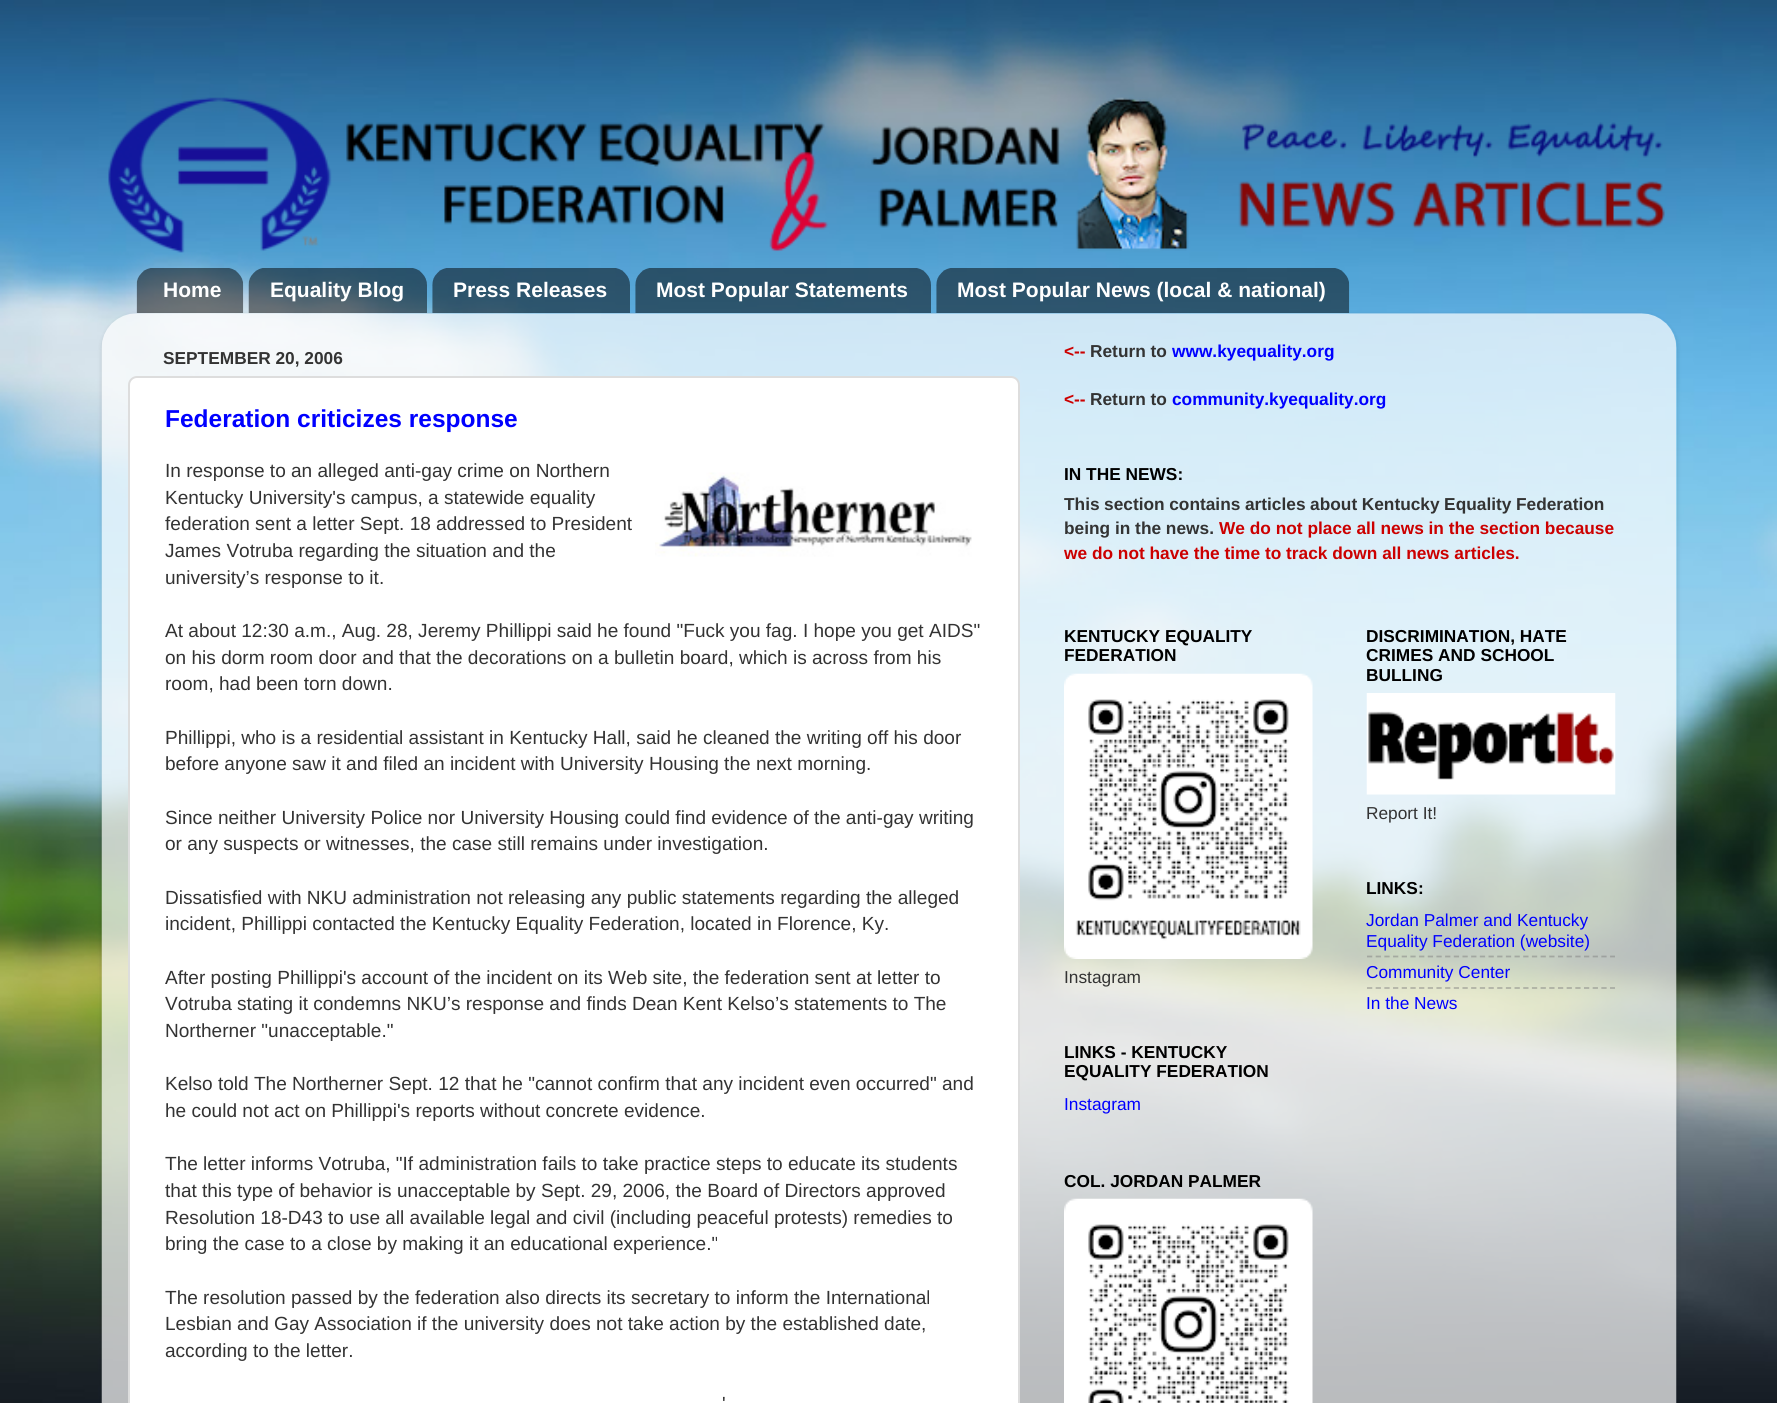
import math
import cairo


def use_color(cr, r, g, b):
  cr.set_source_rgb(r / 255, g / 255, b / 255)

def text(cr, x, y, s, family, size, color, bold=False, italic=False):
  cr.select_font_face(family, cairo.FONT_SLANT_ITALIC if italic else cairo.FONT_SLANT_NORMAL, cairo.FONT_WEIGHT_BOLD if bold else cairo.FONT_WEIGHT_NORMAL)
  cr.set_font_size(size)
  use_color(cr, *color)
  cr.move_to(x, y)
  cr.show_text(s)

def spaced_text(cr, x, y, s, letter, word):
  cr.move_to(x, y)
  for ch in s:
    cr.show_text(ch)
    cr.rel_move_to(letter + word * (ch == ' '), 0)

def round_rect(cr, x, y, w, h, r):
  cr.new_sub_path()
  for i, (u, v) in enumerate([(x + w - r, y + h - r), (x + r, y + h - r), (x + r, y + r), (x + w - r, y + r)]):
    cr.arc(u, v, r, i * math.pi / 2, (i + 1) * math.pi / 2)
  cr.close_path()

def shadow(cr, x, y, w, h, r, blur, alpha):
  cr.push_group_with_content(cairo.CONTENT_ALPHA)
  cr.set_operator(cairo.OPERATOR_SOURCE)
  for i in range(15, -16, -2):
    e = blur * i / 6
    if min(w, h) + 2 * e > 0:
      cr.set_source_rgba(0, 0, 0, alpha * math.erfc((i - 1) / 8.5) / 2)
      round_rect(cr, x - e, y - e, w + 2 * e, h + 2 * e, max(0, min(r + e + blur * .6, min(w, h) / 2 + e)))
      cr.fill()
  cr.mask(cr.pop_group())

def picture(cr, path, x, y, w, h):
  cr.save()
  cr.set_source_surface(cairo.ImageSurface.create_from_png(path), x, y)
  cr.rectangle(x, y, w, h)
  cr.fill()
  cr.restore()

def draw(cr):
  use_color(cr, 255, 255, 255)
  cr.paint()
  picture(cr, "img_01.png", 0, 0, 1777, 1403)
  picture(cr, "img_02.png", 108, 97, 1557, 156)
  picture(cr, "img_03.png", 136, 268, 108, 45)
  picture(cr, "img_04.png", 248, 268, 179, 45)
  picture(cr, "img_05.png", 432, 268, 198, 45)
  picture(cr, "img_06.png", 635, 268, 296, 45)
  picture(cr, "img_07.png", 936, 268, 414, 45)
  cr.save()
  cr.set_fill_rule(cairo.FILL_RULE_EVEN_ODD)
  cr.new_path()
  cr.move_to(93, 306)
  cr.line_to(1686, 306)
  cr.line_to(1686, 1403)
  cr.line_to(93, 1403)
  cr.close_path()
  cr.move_to(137, 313)
  cr.line_to(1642, 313)
  cr.curve_to(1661.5, 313, 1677, 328.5, 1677, 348)
  cr.line_to(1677, 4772)
  cr.line_to(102, 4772)
  cr.line_to(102, 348)
  cr.curve_to(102, 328.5, 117.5, 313, 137, 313)
  cr.close_path()
  cr.clip()
  use_color(cr, 0, 0, 0)
  shadow(cr, 102, 315, 1575, 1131, 35, 2.5, 0.15)
  cr.restore()
  picture(cr, "img_08.png", 101, 313, 1576, 1090)
  use_color(cr, 255, 255, 255)
  round_rect(cr, 129, 377, 890, 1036, 8)
  cr.fill_preserve()
  use_color(cr, 221, 221, 221)
  cr.stroke()
  picture(cr, "img_09.png", 655, 472, 317, 85)
  picture(cr, "img_10.png", 1064, 673, 249, 286)
  picture(cr, "img_11.png", 1064, 1198, 249, 205)
  picture(cr, "img_12.png", 1366, 693, 250, 102)
  cr.new_path()
  cr.move_to(1367, 956.5)
  cr.line_to(1615, 956.5)
  cr.set_source_rgba(0.502, 0.502, 0.502, 0.5)
  cr.set_line_width(1.8)
  cr.set_dash([5.25, 3.43])
  cr.stroke()
  cr.new_path()
  cr.move_to(1367, 988)
  cr.line_to(1615, 988)
  cr.stroke()
  text(cr, 163, 297, "Home", "Liberation Sans", 21, (255, 255, 255), bold=True)
  text(cr, 270, 297, "Equality Blog", "Liberation Sans", 21, (255, 255, 255), bold=True)
  text(cr, 453, 297, "Press Releases", "Liberation Sans", 21, (255, 255, 255), bold=True)
  text(cr, 656, 297, "Most Popular Statements", "Liberation Sans", 21, (255, 255, 255), bold=True)
  text(cr, 957, 297, "Most Popular News (local & national)", "Liberation Sans", 21, (255, 255, 255), bold=True)
  text(cr, 163, 364, "SEPTEMBER 20, 2006", "Liberation Sans", 17.3, (51, 51, 51), bold=True)
  text(cr, 165, 427, "Federation criticizes response", "Liberation Sans", 24.5, (0, 0, 255), bold=True)
  text(cr, 165, 477, "In response to an alleged anti-gay crime on Northern", "Liberation Sans", 19.05, (51, 51, 51))
  text(cr, 165, 504, "Kentucky University's campus, a statewide equality", "Liberation Sans", 19.05, (51, 51, 51))
  text(cr, 165, 530, "federation sent a letter Sept. 18 addressed to President", "Liberation Sans", 19.05, (51, 51, 51))
  text(cr, 165, 557, "James Votruba regarding the situation and the", "Liberation Sans", 19.05, (51, 51, 51))
  text(cr, 165, 584, "university’s response to it.", "Liberation Sans", 19.05, (51, 51, 51))
  text(cr, 165, 637, "At about 12:30 a.m., Aug. 28, Jeremy Phillippi said he found \"Fuck you fag. I hope you get AIDS\"", "Liberation Sans", 19.05, (51, 51, 51))
  text(cr, 165, 664, "on his dorm room door and that the decorations on a bulletin board, which is across from his", "Liberation Sans", 19.05, (51, 51, 51))
  text(cr, 165, 690, "room, had been torn down.", "Liberation Sans", 19.05, (51, 51, 51))
  text(cr, 165, 744, "Phillippi, who is a residential assistant in Kentucky Hall, said he cleaned the writing off his door", "Liberation Sans", 19.05, (51, 51, 51))
  text(cr, 165, 770, "before anyone saw it and filed an incident with University Housing the next morning.", "Liberation Sans", 19.05, (51, 51, 51))
  text(cr, 165, 824, "Since neither University Police nor University Housing could find evidence of the anti-gay writing", "Liberation Sans", 19.05, (51, 51, 51))
  text(cr, 165, 850, "or any suspects or witnesses, the case still remains under investigation.", "Liberation Sans", 19.05, (51, 51, 51))
  text(cr, 165, 904, "Dissatisfied with NKU administration not releasing any public statements regarding the alleged", "Liberation Sans", 19.05, (51, 51, 51))
  text(cr, 165, 930, "incident, Phillippi contacted the Kentucky Equality Federation, located in Florence, Ky.", "Liberation Sans", 19.05, (51, 51, 51))
  text(cr, 165, 984, "After posting Phillippi's account of the incident on its Web site, the federation sent at letter to", "Liberation Sans", 19.05, (51, 51, 51))
  text(cr, 165, 1010, "Votruba stating it condemns NKU’s response and finds Dean Kent Kelso’s statements to The", "Liberation Sans", 19.05, (51, 51, 51))
  text(cr, 165, 1037, "Northerner \"unacceptable.\"", "Liberation Sans", 19.05, (51, 51, 51))
  text(cr, 165, 1090, "Kelso told The Northerner Sept. 12 that he \"cannot confirm that any incident even occurred\" and", "Liberation Sans", 19.05, (51, 51, 51))
  text(cr, 165, 1117, "he could not act on Phillippi's reports without concrete evidence.", "Liberation Sans", 19.05, (51, 51, 51))
  text(cr, 165, 1170, "The letter informs Votruba, \"If administration fails to take practice steps to educate its students", "Liberation Sans", 19.05, (51, 51, 51))
  text(cr, 165, 1197, "that this type of behavior is unacceptable by Sept. 29, 2006, the Board of Directors approved", "Liberation Sans", 19.05, (51, 51, 51))
  text(cr, 165, 1224, "Resolution 18-D43 to use all available legal and civil (including peaceful protests) remedies to", "Liberation Sans", 19.05, (51, 51, 51))
  text(cr, 165, 1250, "bring the case to a close by making it an educational experience.\"", "Liberation Sans", 19.05, (51, 51, 51))
  text(cr, 165, 1304, "The resolution passed by the federation also directs its secretary to inform the International", "Liberation Sans", 19.05, (51, 51, 51))
  text(cr, 165, 1330, "Lesbian and Gay Association if the university does not take action by the established date,", "Liberation Sans", 19.05, (51, 51, 51))
  text(cr, 165, 1357, "according to the letter.", "Liberation Sans", 19.05, (51, 51, 51))
  text(cr, 722, 1410, "'", "Liberation Sans", 19.05, (51, 51, 51))
  text(cr, 1064, 357, "<--", "Liberation Sans", 17.3, (204, 0, 0), bold=True)
  text(cr, 1090, 357, "Return to", "Liberation Sans", 17.3, (51, 51, 51), bold=True)
  text(cr, 1172, 357, "www.kyequality.org", "Liberation Sans", 17.3, (0, 0, 255), bold=True)
  text(cr, 1064, 405, "<--", "Liberation Sans", 17.3, (204, 0, 0), bold=True)
  text(cr, 1090, 405, "Return to", "Liberation Sans", 17.3, (51, 51, 51), bold=True)
  text(cr, 1172, 405, "community.kyequality.org", "Liberation Sans", 17.3, (0, 0, 255), bold=True)
  text(cr, 1064, 480, "IN THE NEWS:", "Liberation Sans", 17.3, (0, 0, 0), bold=True)
  use_color(cr, 51, 51, 51)
  spaced_text(cr, 1064, 510, "This section contains articles about Kentucky Equality Federation", 0, -0.25)
  text(cr, 1064, 534, "being in the news.", "Liberation Sans", 17.3, (51, 51, 51), bold=True)
  text(cr, 1219, 534, "We do not place all news in the section because", "Liberation Sans", 17.3, (204, 0, 0), bold=True)
  text(cr, 1064, 559, "we do not have the time to track down all news articles.", "Liberation Sans", 17.3, (204, 0, 0), bold=True)
  text(cr, 1064, 642, "KENTUCKY EQUALITY", "Liberation Sans", 17.3, (0, 0, 0), bold=True)
  text(cr, 1064, 661, "FEDERATION", "Liberation Sans", 17.3, (0, 0, 0), bold=True)
  text(cr, 1064, 983, "Instagram", "Liberation Sans", 17.3, (51, 51, 51))
  text(cr, 1064, 1058, "LINKS - KENTUCKY", "Liberation Sans", 17.3, (0, 0, 0), bold=True)
  text(cr, 1064, 1077, "EQUALITY FEDERATION", "Liberation Sans", 17.3, (0, 0, 0), bold=True)
  text(cr, 1064, 1110, "Instagram", "Liberation Sans", 17.3, (0, 0, 255))
  text(cr, 1064, 1187, "COL. JORDAN PALMER", "Liberation Sans", 17.3, (0, 0, 0), bold=True)
  text(cr, 1366, 642, "DISCRIMINATION, HATE", "Liberation Sans", 17.3, (0, 0, 0), bold=True)
  text(cr, 1366, 661, "CRIMES AND SCHOOL", "Liberation Sans", 17.3, (0, 0, 0), bold=True)
  text(cr, 1366, 681, "BULLING", "Liberation Sans", 17.3, (0, 0, 0), bold=True)
  text(cr, 1366, 819, "Report It!", "Liberation Sans", 17.3, (51, 51, 51))
  text(cr, 1366, 894, "LINKS:", "Liberation Sans", 17.3, (0, 0, 0), bold=True)
  text(cr, 1366, 926, "Jordan Palmer and Kentucky", "Liberation Sans", 17.3, (0, 0, 255))
  text(cr, 1366, 947, "Equality Federation (website)", "Liberation Sans", 17.3, (0, 0, 255))
  text(cr, 1366, 978, "Community Center", "Liberation Sans", 17.3, (0, 0, 255))
  text(cr, 1366, 1009, "In the News", "Liberation Sans", 17.3, (0, 0, 255))


surface = cairo.ImageSurface(cairo.FORMAT_RGB24, 1777, 1403)
cr = cairo.Context(surface)
options = cairo.FontOptions()
options.set_hint_metrics(cairo.HINT_METRICS_OFF)
options.set_hint_style(cairo.HINT_STYLE_NONE)
cr.set_font_options(options)
cr.set_miter_limit(4)
draw(cr)
surface.write_to_png("out.png")
